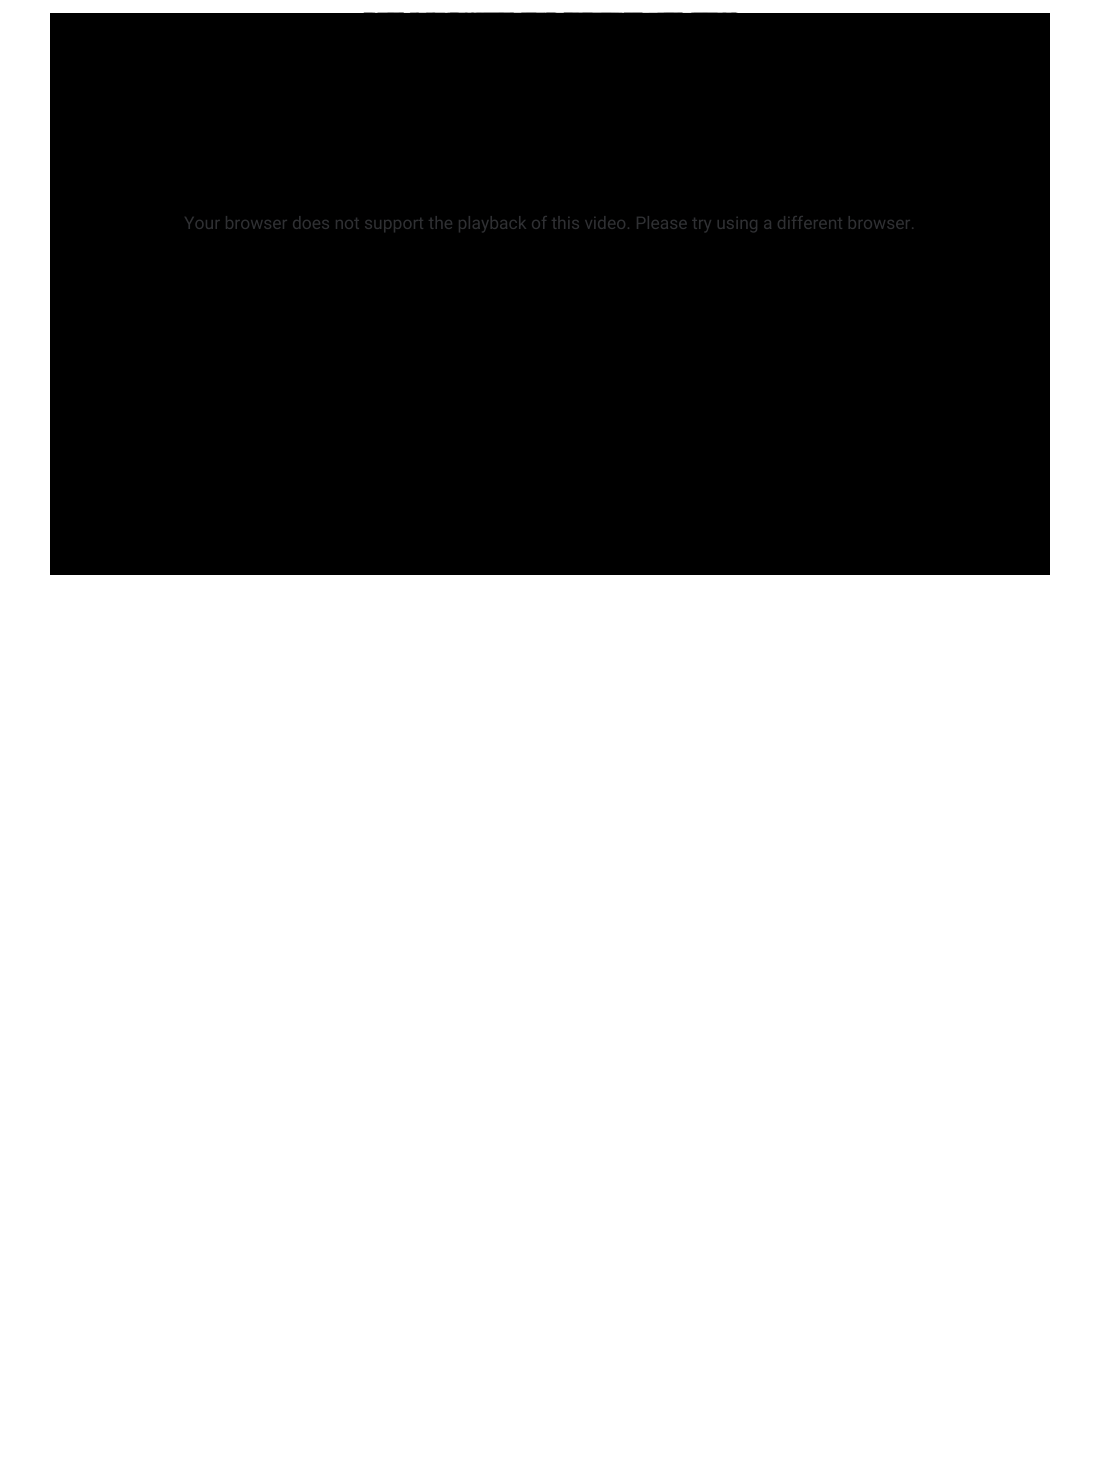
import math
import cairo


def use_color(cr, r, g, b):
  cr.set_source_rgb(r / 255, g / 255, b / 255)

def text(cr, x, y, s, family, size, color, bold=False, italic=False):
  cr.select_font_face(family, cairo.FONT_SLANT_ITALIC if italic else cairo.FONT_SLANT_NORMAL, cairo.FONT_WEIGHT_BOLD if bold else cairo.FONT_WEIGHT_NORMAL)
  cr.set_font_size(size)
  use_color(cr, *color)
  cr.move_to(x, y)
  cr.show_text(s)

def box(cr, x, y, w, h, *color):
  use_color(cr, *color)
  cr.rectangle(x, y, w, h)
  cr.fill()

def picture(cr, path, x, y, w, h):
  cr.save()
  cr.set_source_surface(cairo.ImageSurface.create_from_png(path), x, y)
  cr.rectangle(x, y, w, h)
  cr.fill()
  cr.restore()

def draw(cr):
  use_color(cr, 255, 255, 255)
  cr.paint()
  box(cr, 50, 13, 1000, 562, 0, 0, 0)
  picture(cr, "img_01.png", 363, 12, 375, 1)
  text(cr, 184, 229, "Your browser does not support the playback of this video. Please try using a different browser.", "Roboto", 17.5, (47, 48, 51))


surface = cairo.ImageSurface(cairo.FORMAT_RGB24, 1099, 1460)
cr = cairo.Context(surface)
options = cairo.FontOptions()
options.set_hint_metrics(cairo.HINT_METRICS_OFF)
options.set_hint_style(cairo.HINT_STYLE_NONE)
cr.set_font_options(options)
cr.set_miter_limit(4)
draw(cr)
surface.write_to_png("out.png")
